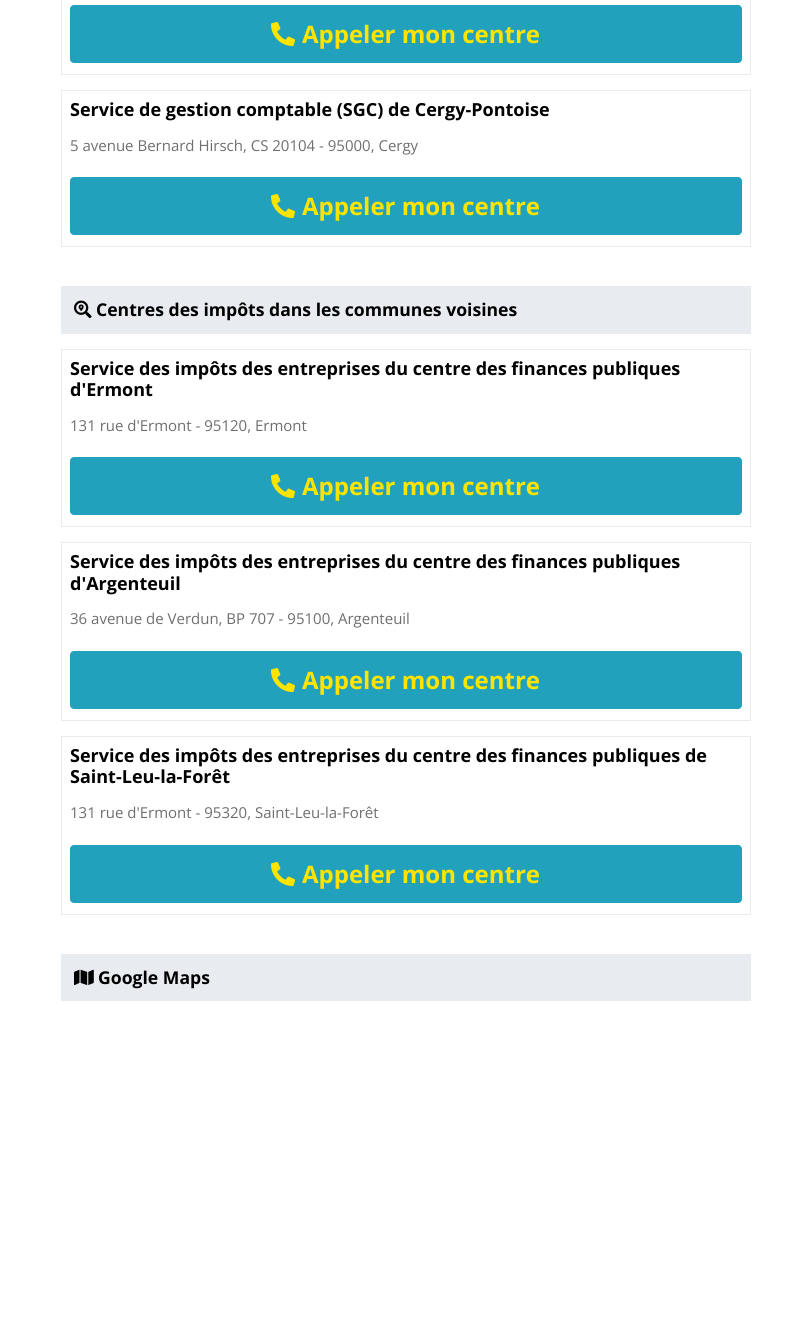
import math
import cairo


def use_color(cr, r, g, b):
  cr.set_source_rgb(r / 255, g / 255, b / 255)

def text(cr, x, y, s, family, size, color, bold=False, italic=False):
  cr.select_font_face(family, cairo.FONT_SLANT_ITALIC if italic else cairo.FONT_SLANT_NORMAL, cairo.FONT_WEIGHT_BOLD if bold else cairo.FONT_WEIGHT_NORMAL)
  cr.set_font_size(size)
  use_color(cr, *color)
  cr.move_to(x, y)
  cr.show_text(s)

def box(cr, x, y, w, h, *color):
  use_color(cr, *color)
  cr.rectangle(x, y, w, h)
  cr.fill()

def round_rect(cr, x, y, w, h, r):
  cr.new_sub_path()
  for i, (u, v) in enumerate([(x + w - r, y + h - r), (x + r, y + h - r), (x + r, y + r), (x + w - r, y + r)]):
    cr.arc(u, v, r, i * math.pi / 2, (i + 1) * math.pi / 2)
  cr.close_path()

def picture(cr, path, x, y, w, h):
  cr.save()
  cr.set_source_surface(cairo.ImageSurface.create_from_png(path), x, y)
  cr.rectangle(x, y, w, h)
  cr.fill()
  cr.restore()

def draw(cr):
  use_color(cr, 255, 255, 255)
  cr.paint()
  cr.rectangle(61.5, -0.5, 689, 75)
  use_color(cr, 232, 236, 241)
  cr.set_line_width(1)
  cr.stroke()
  use_color(cr, 34, 161, 189)
  round_rect(cr, 70, 5, 672, 58, 4)
  cr.fill()
  picture(cr, "img_01.png", 271, 22, 24, 24)
  cr.rectangle(61.5, 90.5, 689, 156)
  use_color(cr, 232, 236, 241)
  cr.stroke()
  use_color(cr, 34, 161, 189)
  round_rect(cr, 70, 177, 672, 58, 4)
  cr.fill()
  picture(cr, "img_01.png", 271, 194, 24, 24)
  box(cr, 61, 286, 690, 48, 232, 236, 241)
  picture(cr, "img_02.png", 74, 300, 18, 19)
  cr.rectangle(61.5, 349.5, 689, 177)
  cr.stroke()
  use_color(cr, 34, 161, 189)
  round_rect(cr, 70, 457, 672, 58, 4)
  cr.fill()
  picture(cr, "img_01.png", 271, 474, 24, 24)
  cr.rectangle(61.5, 542.5, 689, 178)
  use_color(cr, 232, 236, 241)
  cr.stroke()
  use_color(cr, 34, 161, 189)
  round_rect(cr, 70, 651, 672, 58, 4)
  cr.fill()
  picture(cr, "img_01.png", 271, 668, 24, 24)
  cr.rectangle(61.5, 736.5, 689, 178)
  use_color(cr, 232, 236, 241)
  cr.stroke()
  use_color(cr, 34, 161, 189)
  round_rect(cr, 70, 845, 672, 58, 4)
  cr.fill()
  picture(cr, "img_01.png", 271, 862, 24, 24)
  box(cr, 61, 954, 690, 47, 232, 236, 241)
  picture(cr, "img_03.png", 74, 969, 20, 16)
  text(cr, 302, 43, "Appeler mon centre", "Open Sans", 24, (255, 228, 0), bold=True)
  text(cr, 70, 116, "Service de gestion comptable (SGC) de Cergy-Pontoise", "Open Sans", 18, (0, 0, 0), bold=True)
  text(cr, 70, 151, "5 avenue Bernard Hirsch, CS 20104 - 95000, Cergy", "Open Sans", 15, (111, 111, 111))
  text(cr, 302, 215, "Appeler mon centre", "Open Sans", 24, (255, 228, 0), bold=True)
  text(cr, 96, 316, "Centres des impôts dans les communes voisines", "Open Sans", 17.6, (0, 0, 0), bold=True)
  text(cr, 70, 375, "Service des impôts des entreprises du centre des finances publiques", "Open Sans", 18, (0, 0, 0), bold=True)
  text(cr, 70, 396, "d'Ermont", "Open Sans", 18, (0, 0, 0), bold=True)
  text(cr, 70, 431, "131 rue d'Ermont - 95120, Ermont", "Open Sans", 15, (111, 111, 111))
  text(cr, 302, 495, "Appeler mon centre", "Open Sans", 24, (255, 228, 0), bold=True)
  text(cr, 70, 568, "Service des impôts des entreprises du centre des finances publiques", "Open Sans", 18, (0, 0, 0), bold=True)
  text(cr, 70, 590, "d'Argenteuil", "Open Sans", 18, (0, 0, 0), bold=True)
  text(cr, 70, 624, "36 avenue de Verdun, BP 707 - 95100, Argenteuil", "Open Sans", 15, (111, 111, 111))
  text(cr, 302, 689, "Appeler mon centre", "Open Sans", 24, (255, 228, 0), bold=True)
  text(cr, 70, 762, "Service des impôts des entreprises du centre des finances publiques de", "Open Sans", 18, (0, 0, 0), bold=True)
  text(cr, 70, 783, "Saint-Leu-la-Forêt", "Open Sans", 18, (0, 0, 0), bold=True)
  text(cr, 70, 818, "131 rue d'Ermont - 95320, Saint-Leu-la-Forêt", "Open Sans", 15, (111, 111, 111))
  text(cr, 302, 883, "Appeler mon centre", "Open Sans", 24, (255, 228, 0), bold=True)
  text(cr, 98, 984, "Google Maps", "Open Sans", 17.6, (0, 0, 0), bold=True)


surface = cairo.ImageSurface(cairo.FORMAT_RGB24, 811, 1333)
cr = cairo.Context(surface)
options = cairo.FontOptions()
options.set_hint_metrics(cairo.HINT_METRICS_OFF)
options.set_hint_style(cairo.HINT_STYLE_NONE)
cr.set_font_options(options)
cr.set_miter_limit(4)
draw(cr)
surface.write_to_png("out.png")
